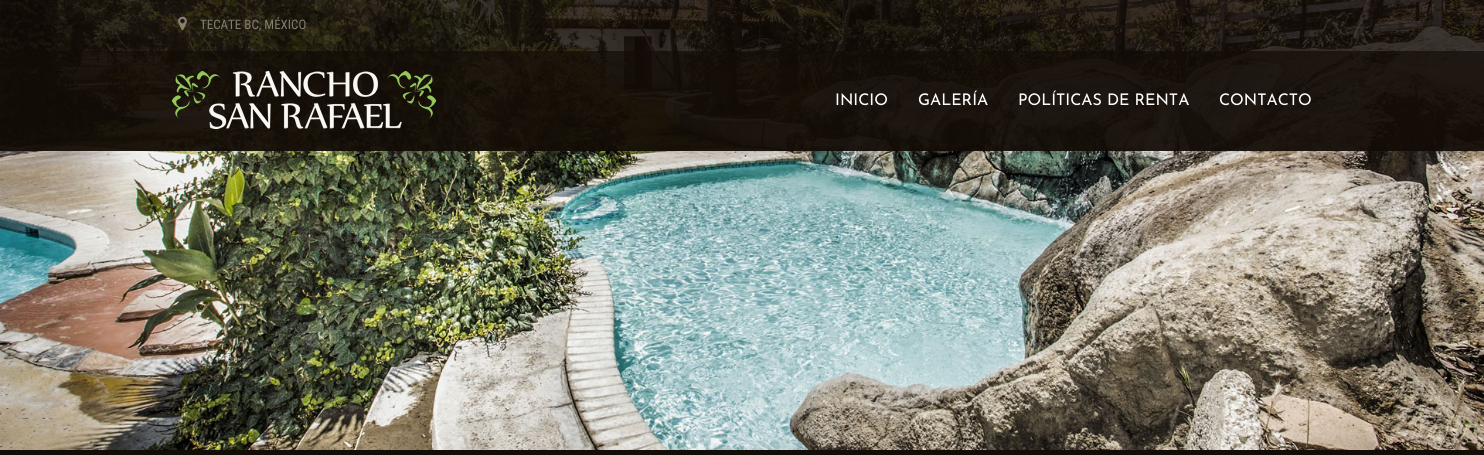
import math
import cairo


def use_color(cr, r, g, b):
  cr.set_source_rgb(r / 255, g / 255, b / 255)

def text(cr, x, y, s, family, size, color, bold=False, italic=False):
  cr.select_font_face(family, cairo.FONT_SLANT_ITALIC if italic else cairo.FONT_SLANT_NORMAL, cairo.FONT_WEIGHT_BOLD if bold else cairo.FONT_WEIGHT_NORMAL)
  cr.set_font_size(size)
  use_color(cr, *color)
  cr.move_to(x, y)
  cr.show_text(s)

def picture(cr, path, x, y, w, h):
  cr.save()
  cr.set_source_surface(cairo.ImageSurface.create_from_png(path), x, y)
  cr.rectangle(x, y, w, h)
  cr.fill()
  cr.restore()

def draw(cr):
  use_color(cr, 20, 12, 7)
  cr.paint()
  picture(cr, "img_01.png", 0, 0, 1484, 450)
  cr.set_source_rgba(0.078, 0.047, 0.027, 0.8)
  cr.rectangle(0, 0, 1484, 151)
  cr.fill()
  picture(cr, "img_02.png", 178, 16, 9, 14)
  cr.set_source_rgba(0.078, 0.047, 0.027, 0.7)
  cr.rectangle(0, 51, 1484, 100)
  cr.fill()
  picture(cr, "img_03.png", 172, 71, 264, 58)
  text(cr, 200, 29, "TECATE BC, MÉXICO", "Roboto Condensed", 13, (132, 125, 112))
  text(cr, 835, 105, "INICIO", "Josefin Sans", 16, (255, 255, 255))
  text(cr, 918, 105, "GALERÍA", "Josefin Sans", 16, (255, 255, 255))
  text(cr, 1018, 105, "POLÍTICAS DE RENTA", "Josefin Sans", 16, (255, 255, 255))
  text(cr, 1219, 105, "CONTACTO", "Josefin Sans", 16, (255, 255, 255))


surface = cairo.ImageSurface(cairo.FORMAT_RGB24, 1484, 455)
cr = cairo.Context(surface)
options = cairo.FontOptions()
options.set_hint_metrics(cairo.HINT_METRICS_OFF)
options.set_hint_style(cairo.HINT_STYLE_NONE)
cr.set_font_options(options)
cr.set_miter_limit(4)
draw(cr)
surface.write_to_png("out.png")
